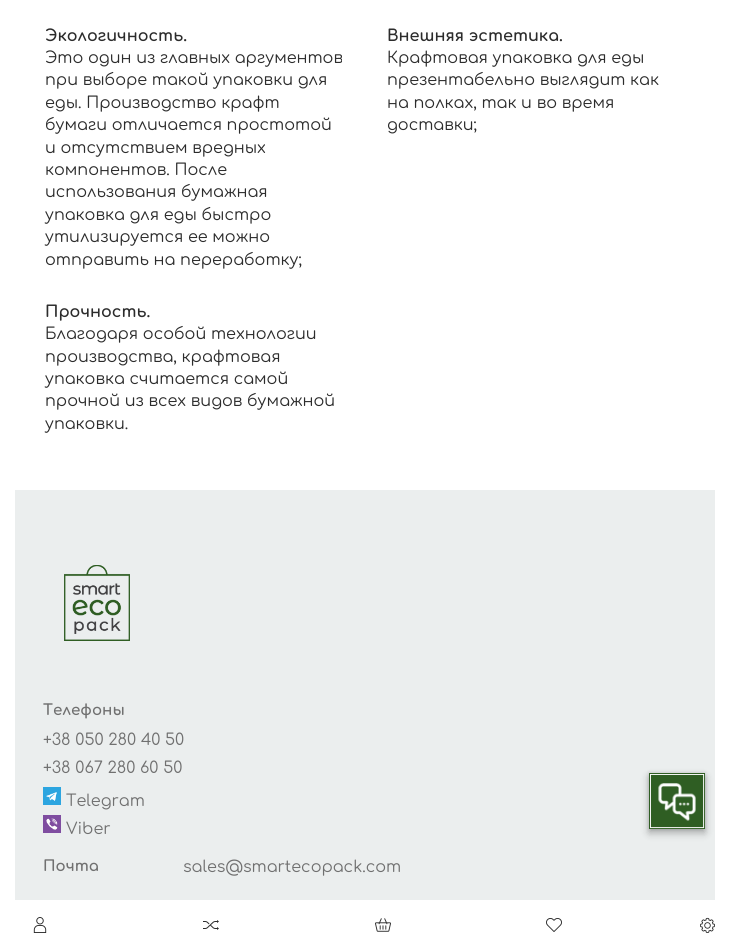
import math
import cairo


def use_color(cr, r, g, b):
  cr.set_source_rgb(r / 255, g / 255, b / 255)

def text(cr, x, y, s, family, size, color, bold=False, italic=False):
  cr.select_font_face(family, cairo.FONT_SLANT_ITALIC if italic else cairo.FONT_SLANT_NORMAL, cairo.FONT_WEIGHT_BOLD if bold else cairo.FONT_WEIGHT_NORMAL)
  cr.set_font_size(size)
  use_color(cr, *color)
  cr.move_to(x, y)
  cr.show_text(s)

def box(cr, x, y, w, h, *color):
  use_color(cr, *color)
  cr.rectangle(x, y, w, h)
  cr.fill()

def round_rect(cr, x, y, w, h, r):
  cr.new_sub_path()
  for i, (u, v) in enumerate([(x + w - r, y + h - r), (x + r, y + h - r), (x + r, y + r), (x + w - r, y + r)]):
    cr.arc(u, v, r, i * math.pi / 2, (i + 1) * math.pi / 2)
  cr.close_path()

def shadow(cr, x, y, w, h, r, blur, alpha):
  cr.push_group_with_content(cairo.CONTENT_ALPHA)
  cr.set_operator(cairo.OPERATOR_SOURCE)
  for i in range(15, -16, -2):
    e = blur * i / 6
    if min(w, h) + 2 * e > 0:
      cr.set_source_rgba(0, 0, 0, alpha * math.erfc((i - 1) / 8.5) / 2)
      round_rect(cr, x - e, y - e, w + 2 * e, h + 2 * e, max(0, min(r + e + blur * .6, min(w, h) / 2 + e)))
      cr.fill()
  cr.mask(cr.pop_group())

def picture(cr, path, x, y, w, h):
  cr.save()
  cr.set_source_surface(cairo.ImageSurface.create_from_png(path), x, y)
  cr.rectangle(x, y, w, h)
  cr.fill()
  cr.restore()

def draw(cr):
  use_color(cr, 255, 255, 255)
  cr.paint()
  box(cr, 15, 490, 700, 410, 235, 238, 238)
  picture(cr, "img_01.png", 64, 565, 66, 76)
  picture(cr, "img_02.png", 43, 787, 18, 18)
  picture(cr, "img_03.png", 43, 815, 18, 18)
  use_color(cr, 0, 0, 0)
  shadow(cr, 649, 777, 56, 56, 0, 4, 0.28)
  shadow(cr, 649, 773, 56, 56, 0, 2, 0.14)
  box(cr, 649, 773, 56, 56, 47, 94, 35)
  picture(cr, "img_04.png", 650, 774, 55, 55)
  picture(cr, "img_05.png", 33, 917, 14, 16)
  picture(cr, "img_06.png", 203, 920, 16, 10)
  picture(cr, "img_07.png", 375, 918, 16, 14)
  picture(cr, "img_08.png", 546, 918, 16, 14)
  picture(cr, "img_09.png", 700, 917, 15, 16)
  text(cr, 45, 41, "Экологичность.", "Comfortaa", 16, (44, 44, 44), bold=True)
  text(cr, 45, 63, "Это один из главных аргументов", "Comfortaa", 16, (44, 44, 44))
  text(cr, 45, 85, "при выборе такой упаковки для", "Comfortaa", 16, (44, 44, 44))
  text(cr, 45, 108, "еды. Производство крафт", "Comfortaa", 16, (44, 44, 44))
  text(cr, 45, 130, "бумаги отличается простотой", "Comfortaa", 16, (44, 44, 44))
  text(cr, 45, 153, "и отсутствием вредных", "Comfortaa", 16, (44, 44, 44))
  text(cr, 45, 175, "компонентов. После", "Comfortaa", 16, (44, 44, 44))
  text(cr, 45, 197, "использования бумажная", "Comfortaa", 16, (44, 44, 44))
  text(cr, 45, 220, "упаковка для еды быстро", "Comfortaa", 16, (44, 44, 44))
  text(cr, 45, 242, "утилизируется ее можно", "Comfortaa", 16, (44, 44, 44))
  text(cr, 45, 265, "отправить на переработку;", "Comfortaa", 16, (44, 44, 44))
  text(cr, 387, 41, "Внешняя эстетика.", "Comfortaa", 16, (44, 44, 44), bold=True)
  text(cr, 387, 63, "Крафтовая упаковка для еды", "Comfortaa", 16, (44, 44, 44))
  text(cr, 387, 85, "презентабельно выглядит как", "Comfortaa", 16, (44, 44, 44))
  text(cr, 387, 108, "на полках, так и во время", "Comfortaa", 16, (44, 44, 44))
  text(cr, 387, 130, "доставки;", "Comfortaa", 16, (44, 44, 44))
  text(cr, 45, 317, "Прочность.", "Comfortaa", 16, (44, 44, 44), bold=True)
  text(cr, 45, 339, "Благодаря особой технологии", "Comfortaa", 16, (44, 44, 44))
  text(cr, 45, 362, "производства, крафтовая", "Comfortaa", 16, (44, 44, 44))
  text(cr, 45, 384, "упаковка считается самой", "Comfortaa", 16, (44, 44, 44))
  text(cr, 45, 406, "прочной из всех видов бумажной", "Comfortaa", 16, (44, 44, 44))
  text(cr, 45, 429, "упаковки.", "Comfortaa", 16, (44, 44, 44))
  text(cr, 43, 715, "Телефоны", "Comfortaa", 15, (112, 112, 112), bold=True)
  text(cr, 43, 745, "+38 050 280 40 50", "Comfortaa", 16, (112, 112, 112))
  text(cr, 43, 773, "+38 067 280 60 50", "Comfortaa", 16, (112, 112, 112))
  text(cr, 66, 806, "Telegram", "Comfortaa", 16, (112, 112, 112))
  text(cr, 66, 834, "Viber", "Comfortaa", 16, (112, 112, 112))
  text(cr, 43, 871, "Почта", "Comfortaa", 15, (112, 112, 112), bold=True)
  text(cr, 183, 872, "sales@smartecopack.com", "Comfortaa", 16, (112, 112, 112))


surface = cairo.ImageSurface(cairo.FORMAT_RGB24, 730, 950)
cr = cairo.Context(surface)
options = cairo.FontOptions()
options.set_hint_metrics(cairo.HINT_METRICS_OFF)
options.set_hint_style(cairo.HINT_STYLE_NONE)
cr.set_font_options(options)
cr.set_miter_limit(4)
draw(cr)
surface.write_to_png("out.png")
